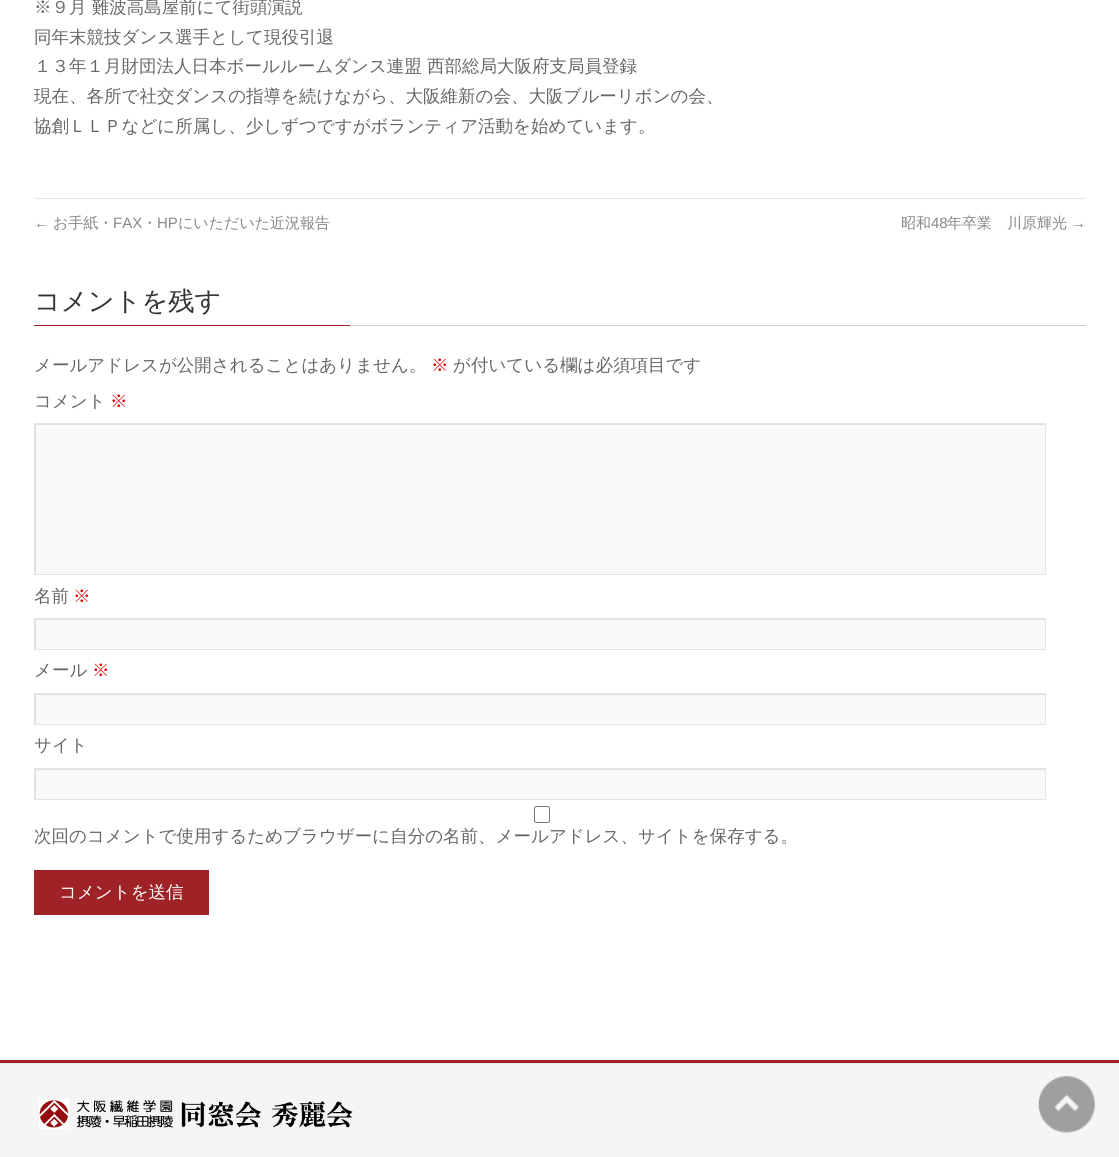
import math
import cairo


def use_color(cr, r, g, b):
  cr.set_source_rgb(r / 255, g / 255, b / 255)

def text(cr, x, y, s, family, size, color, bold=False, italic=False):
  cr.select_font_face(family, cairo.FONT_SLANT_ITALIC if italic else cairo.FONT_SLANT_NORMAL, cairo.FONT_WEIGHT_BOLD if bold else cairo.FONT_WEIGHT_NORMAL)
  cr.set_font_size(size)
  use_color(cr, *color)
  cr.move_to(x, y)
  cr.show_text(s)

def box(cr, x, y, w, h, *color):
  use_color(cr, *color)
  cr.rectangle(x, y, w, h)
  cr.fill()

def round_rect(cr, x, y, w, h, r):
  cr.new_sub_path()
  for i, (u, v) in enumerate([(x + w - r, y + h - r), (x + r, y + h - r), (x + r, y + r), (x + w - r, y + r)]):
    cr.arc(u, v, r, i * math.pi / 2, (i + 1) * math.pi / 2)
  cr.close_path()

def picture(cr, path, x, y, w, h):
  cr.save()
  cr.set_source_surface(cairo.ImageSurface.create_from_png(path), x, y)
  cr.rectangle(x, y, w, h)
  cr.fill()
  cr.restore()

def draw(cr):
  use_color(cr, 255, 255, 255)
  cr.paint()
  box(cr, 34, 198, 1052, 1, 229, 229, 229)
  box(cr, 350, 325, 736, 1, 204, 204, 204)
  box(cr, 34, 325, 316, 1, 158, 34, 38)
  box(cr, 36, 425, 1009, 149, 249, 249, 249)
  cr.save()
  cr.rectangle(35, 424, 1010, 150)
  cr.clip()
  use_color(cr, 224, 224, 224)
  cr.set_fill_rule(cairo.FILL_RULE_EVEN_ODD)
  cr.new_path()
  cr.move_to(-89, 300)
  cr.line_to(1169, 300)
  cr.line_to(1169, 698)
  cr.line_to(-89, 698)
  cr.close_path()
  cr.move_to(36, 425)
  cr.line_to(1046, 425)
  cr.line_to(1046, 575)
  cr.line_to(36, 575)
  cr.close_path()
  cr.fill()
  cr.restore()
  cr.rectangle(34.5, 423.5, 1011, 151)
  use_color(cr, 229, 229, 229)
  cr.set_line_width(1)
  cr.stroke()
  box(cr, 36, 620, 1009, 29, 249, 249, 249)
  cr.save()
  cr.rectangle(35, 619, 1010, 30)
  cr.clip()
  use_color(cr, 224, 224, 224)
  cr.set_fill_rule(cairo.FILL_RULE_EVEN_ODD)
  cr.new_path()
  cr.move_to(-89, 495)
  cr.line_to(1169, 495)
  cr.line_to(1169, 772)
  cr.line_to(-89, 772)
  cr.close_path()
  cr.move_to(36, 620)
  cr.line_to(1046, 620)
  cr.line_to(1046, 650)
  cr.line_to(36, 650)
  cr.close_path()
  cr.fill()
  cr.restore()
  cr.rectangle(34.5, 618.5, 1011, 31)
  use_color(cr, 229, 229, 229)
  cr.stroke()
  box(cr, 36, 695, 1009, 29, 249, 249, 249)
  cr.save()
  cr.rectangle(35, 694, 1010, 30)
  cr.clip()
  use_color(cr, 224, 224, 224)
  cr.set_fill_rule(cairo.FILL_RULE_EVEN_ODD)
  cr.new_path()
  cr.move_to(-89, 570)
  cr.line_to(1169, 570)
  cr.line_to(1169, 848)
  cr.line_to(-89, 848)
  cr.close_path()
  cr.move_to(36, 695)
  cr.line_to(1046, 695)
  cr.line_to(1046, 725)
  cr.line_to(36, 725)
  cr.close_path()
  cr.fill()
  cr.restore()
  cr.rectangle(34.5, 693.5, 1011, 31)
  use_color(cr, 229, 229, 229)
  cr.stroke()
  box(cr, 36, 770, 1009, 29, 249, 249, 249)
  cr.save()
  cr.rectangle(35, 769, 1010, 30)
  cr.clip()
  use_color(cr, 224, 224, 224)
  cr.set_fill_rule(cairo.FILL_RULE_EVEN_ODD)
  cr.new_path()
  cr.move_to(-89, 645)
  cr.line_to(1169, 645)
  cr.line_to(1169, 922)
  cr.line_to(-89, 922)
  cr.close_path()
  cr.move_to(36, 770)
  cr.line_to(1046, 770)
  cr.line_to(1046, 800)
  cr.line_to(36, 800)
  cr.close_path()
  cr.fill()
  cr.restore()
  cr.rectangle(34.5, 768.5, 1011, 31)
  use_color(cr, 229, 229, 229)
  cr.stroke()
  round_rect(cr, 534.5, 806.5, 15, 16, 2)
  use_color(cr, 118, 118, 118)
  cr.stroke()
  box(cr, 34, 870, 175, 45, 158, 34, 38)
  box(cr, 0, 1060, 1119, 3, 158, 34, 38)
  box(cr, 0, 1063, 1119, 1, 233, 233, 233)
  box(cr, 0, 1064, 1119, 93, 245, 245, 245)
  picture(cr, "img_01.png", 39, 1099, 314, 30)
  picture(cr, "img_02.png", 1038, 1076, 57, 57)
  text(cr, 34, 13, "※９月 難波高島屋前にて街頭演説", "WenQuanYi Zen Hei Medium", 17.5, (102, 102, 102))
  text(cr, 34, 43, "同年末競技ダンス選手として現役引退", "WenQuanYi Zen Hei Medium", 17.5, (102, 102, 102))
  text(cr, 34, 72, "１３年１月財団法人日本ボールルームダンス連盟 西部総局大阪府支局員登録", "WenQuanYi Zen Hei Medium", 17.5, (102, 102, 102))
  text(cr, 34, 102, "現在、各所で社交ダンスの指導を続けながら、大阪維新の会、大阪ブルーリボンの会、", "WenQuanYi Zen Hei Medium", 17.5, (102, 102, 102))
  text(cr, 34, 132, "協創ＬＬＰなどに所属し、少しずつですがボランティア活動を始めています。", "WenQuanYi Zen Hei Medium", 17.5, (102, 102, 102))
  text(cr, 53, 228, "お手紙・", "WenQuanYi Zen Hei Medium", 15, (136, 136, 136))
  text(cr, 113, 228, "FAX", "Liberation Sans", 15, (136, 136, 136))
  text(cr, 142, 228, "・", "WenQuanYi Zen Hei Medium", 15, (136, 136, 136))
  text(cr, 157, 228, "HP", "Liberation Sans", 15, (136, 136, 136))
  text(cr, 178, 228, "にいただいた近況報告", "WenQuanYi Zen Hei Medium", 15, (136, 136, 136))
  text(cr, 34, 228, "←", "Liberation Sans", 15, (136, 136, 136))
  text(cr, 901, 228, "昭和", "WenQuanYi Zen Hei Medium", 15, (136, 136, 136))
  text(cr, 931, 228, "48", "Liberation Sans", 15, (136, 136, 136))
  text(cr, 947, 228, "年卒業　川原輝光", "WenQuanYi Zen Hei Medium", 15, (136, 136, 136))
  text(cr, 1071, 228, "→", "Liberation Sans", 15, (136, 136, 136))
  text(cr, 34, 310, "コメントを残す", "WenQuanYi Zen Hei Medium", 26.25, (51, 51, 51))
  text(cr, 34, 371, "メールアドレスが公開されることはありません。", "WenQuanYi Zen Hei Medium", 17.5, (102, 102, 102))
  text(cr, 431, 371, "※", "WenQuanYi Zen Hei Medium", 17.5, (229, 0, 0))
  text(cr, 453, 371, "が付いている欄は必須項目です", "WenQuanYi Zen Hei Medium", 17.5, (102, 102, 102))
  text(cr, 34, 407, "コメント", "WenQuanYi Zen Hei Medium", 17.5, (102, 102, 102))
  text(cr, 110, 407, "※", "WenQuanYi Zen Hei Medium", 17.5, (229, 0, 0))
  text(cr, 34, 602, "名前", "WenQuanYi Zen Hei Medium", 17.5, (102, 102, 102))
  text(cr, 73, 602, "※", "WenQuanYi Zen Hei Medium", 17.5, (229, 0, 0))
  text(cr, 34, 676, "メール", "WenQuanYi Zen Hei Medium", 17.5, (102, 102, 102))
  text(cr, 92, 676, "※", "WenQuanYi Zen Hei Medium", 17.5, (229, 0, 0))
  text(cr, 34, 751, "サイト", "WenQuanYi Zen Hei Medium", 17.5, (102, 102, 102))
  text(cr, 34, 842, "次回のコメントで使用するためブラウザーに自分の名前、メールアドレス、サイトを保存する。", "WenQuanYi Zen Hei Medium", 17.5, (102, 102, 102))
  text(cr, 59, 898, "コメントを送信", "WenQuanYi Zen Hei Medium", 17.5, (255, 255, 255))


surface = cairo.ImageSurface(cairo.FORMAT_RGB24, 1119, 1157)
cr = cairo.Context(surface)
options = cairo.FontOptions()
options.set_hint_metrics(cairo.HINT_METRICS_OFF)
options.set_hint_style(cairo.HINT_STYLE_NONE)
cr.set_font_options(options)
cr.set_miter_limit(4)
draw(cr)
surface.write_to_png("out.png")
